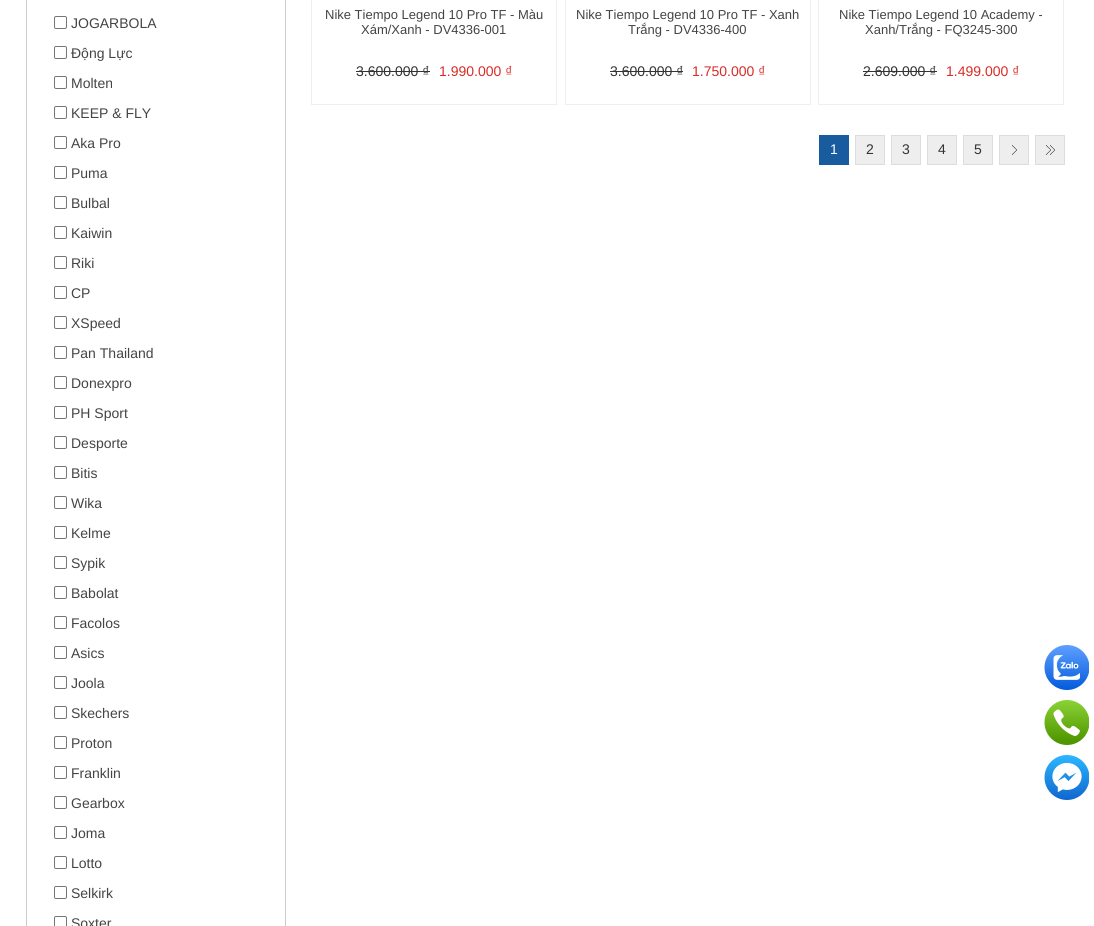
import math
import cairo


def use_color(cr, r, g, b):
  cr.set_source_rgb(r / 255, g / 255, b / 255)

def text(cr, x, y, s, family, size, color, bold=False, italic=False):
  cr.select_font_face(family, cairo.FONT_SLANT_ITALIC if italic else cairo.FONT_SLANT_NORMAL, cairo.FONT_WEIGHT_BOLD if bold else cairo.FONT_WEIGHT_NORMAL)
  cr.set_font_size(size)
  use_color(cr, *color)
  cr.move_to(x, y)
  cr.show_text(s)

def box(cr, x, y, w, h, *color):
  use_color(cr, *color)
  cr.rectangle(x, y, w, h)
  cr.fill()

def round_rect(cr, x, y, w, h, r):
  cr.new_sub_path()
  for i, (u, v) in enumerate([(x + w - r, y + h - r), (x + r, y + h - r), (x + r, y + r), (x + w - r, y + r)]):
    cr.arc(u, v, r, i * math.pi / 2, (i + 1) * math.pi / 2)
  cr.close_path()

def picture(cr, path, x, y, w, h):
  cr.save()
  cr.set_source_surface(cairo.ImageSurface.create_from_png(path), x, y)
  cr.rectangle(x, y, w, h)
  cr.fill()
  cr.restore()

def draw(cr):
  use_color(cr, 255, 255, 255)
  cr.paint()
  cr.rectangle(26.5, -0.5, 259, 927)
  use_color(cr, 204, 204, 204)
  cr.set_line_width(1)
  cr.stroke()
  round_rect(cr, 54.5, 16.5, 12, 12, 1.5)
  use_color(cr, 118, 118, 118)
  cr.stroke()
  round_rect(cr, 54.5, 46.5, 12, 12, 1.5)
  cr.stroke()
  round_rect(cr, 54.5, 76.5, 12, 12, 1.5)
  cr.stroke()
  round_rect(cr, 54.5, 106.5, 12, 12, 1.5)
  cr.stroke()
  round_rect(cr, 54.5, 136.5, 12, 12, 1.5)
  cr.stroke()
  round_rect(cr, 54.5, 166.5, 12, 12, 1.5)
  cr.stroke()
  round_rect(cr, 54.5, 196.5, 12, 12, 1.5)
  cr.stroke()
  round_rect(cr, 54.5, 226.5, 12, 12, 1.5)
  cr.stroke()
  round_rect(cr, 54.5, 256.5, 12, 12, 1.5)
  cr.stroke()
  round_rect(cr, 54.5, 286.5, 12, 12, 1.5)
  cr.stroke()
  round_rect(cr, 54.5, 316.5, 12, 12, 1.5)
  cr.stroke()
  round_rect(cr, 54.5, 346.5, 12, 12, 1.5)
  cr.stroke()
  round_rect(cr, 54.5, 376.5, 12, 12, 1.5)
  cr.stroke()
  round_rect(cr, 54.5, 406.5, 12, 12, 1.5)
  cr.stroke()
  round_rect(cr, 54.5, 436.5, 12, 12, 1.5)
  cr.stroke()
  round_rect(cr, 54.5, 466.5, 12, 12, 1.5)
  cr.stroke()
  round_rect(cr, 54.5, 496.5, 12, 12, 1.5)
  cr.stroke()
  round_rect(cr, 54.5, 526.5, 12, 12, 1.5)
  cr.stroke()
  round_rect(cr, 54.5, 556.5, 12, 12, 1.5)
  cr.stroke()
  round_rect(cr, 54.5, 586.5, 12, 12, 1.5)
  cr.stroke()
  round_rect(cr, 54.5, 616.5, 12, 12, 1.5)
  cr.stroke()
  round_rect(cr, 54.5, 646.5, 12, 12, 1.5)
  cr.stroke()
  round_rect(cr, 54.5, 676.5, 12, 12, 1.5)
  cr.stroke()
  round_rect(cr, 54.5, 706.5, 12, 12, 1.5)
  cr.stroke()
  round_rect(cr, 54.5, 736.5, 12, 12, 1.5)
  cr.stroke()
  round_rect(cr, 54.5, 766.5, 12, 12, 1.5)
  cr.stroke()
  round_rect(cr, 54.5, 796.5, 12, 12, 1.5)
  cr.stroke()
  round_rect(cr, 54.5, 826.5, 12, 12, 1.5)
  cr.stroke()
  round_rect(cr, 54.5, 856.5, 12, 12, 1.5)
  cr.stroke()
  round_rect(cr, 54.5, 886.5, 12, 12, 1.5)
  cr.stroke()
  round_rect(cr, 54.5, 916.5, 12, 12, 1.5)
  cr.stroke()
  cr.rectangle(311.5, -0.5, 245, 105)
  use_color(cr, 238, 238, 238)
  cr.stroke()
  box(cr, 356, 71, 74, 1, 51, 51, 51)
  cr.rectangle(565.5, -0.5, 245, 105)
  use_color(cr, 238, 238, 238)
  cr.stroke()
  box(cr, 610, 71, 73, 1, 51, 51, 51)
  cr.rectangle(818.5, -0.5, 245, 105)
  use_color(cr, 238, 238, 238)
  cr.stroke()
  box(cr, 863, 71, 74, 1, 51, 51, 51)
  box(cr, 819, 135, 30, 30, 24, 91, 158)
  use_color(cr, 238, 238, 238)
  cr.rectangle(855.5, 135.5, 29, 29)
  cr.fill_preserve()
  use_color(cr, 221, 221, 221)
  cr.stroke()
  use_color(cr, 238, 238, 238)
  cr.rectangle(891.5, 135.5, 29, 29)
  cr.fill_preserve()
  use_color(cr, 221, 221, 221)
  cr.stroke()
  use_color(cr, 238, 238, 238)
  cr.rectangle(927.5, 135.5, 29, 29)
  cr.fill_preserve()
  use_color(cr, 221, 221, 221)
  cr.stroke()
  use_color(cr, 238, 238, 238)
  cr.rectangle(963.5, 135.5, 29, 29)
  cr.fill_preserve()
  use_color(cr, 221, 221, 221)
  cr.stroke()
  box(cr, 1000, 136, 28, 28, 238, 238, 238)
  picture(cr, "img_01.png", 1012, 145, 5, 10)
  cr.rectangle(999.5, 135.5, 29, 29)
  use_color(cr, 221, 221, 221)
  cr.stroke()
  box(cr, 1036, 136, 28, 28, 238, 238, 238)
  picture(cr, "img_02.png", 1046, 145, 9, 10)
  cr.rectangle(1035.5, 135.5, 29, 29)
  use_color(cr, 221, 221, 221)
  cr.stroke()
  picture(cr, "img_03.png", 1044, 645, 45, 45)
  picture(cr, "img_04.png", 1044, 700, 45, 45)
  picture(cr, "img_05.png", 1044, 755, 45, 45)
  text(cr, 71, 28, "JOGARBOLA", "Liberation Sans", 14, (68, 68, 68))
  text(cr, 71, 58, "Động Lực", "Liberation Sans", 14, (68, 68, 68))
  text(cr, 71, 88, "Molten", "Liberation Sans", 14, (68, 68, 68))
  text(cr, 71, 118, "KEEP & FLY", "Liberation Sans", 14, (68, 68, 68))
  text(cr, 71, 148, "Aka Pro", "Liberation Sans", 14, (68, 68, 68))
  text(cr, 71, 178, "Puma", "Liberation Sans", 14, (68, 68, 68))
  text(cr, 71, 208, "Bulbal", "Liberation Sans", 14, (68, 68, 68))
  text(cr, 71, 238, "Kaiwin", "Liberation Sans", 14, (68, 68, 68))
  text(cr, 71, 268, "Riki", "Liberation Sans", 14, (68, 68, 68))
  text(cr, 71, 298, "CP", "Liberation Sans", 14, (68, 68, 68))
  text(cr, 71, 328, "XSpeed", "Liberation Sans", 14, (68, 68, 68))
  text(cr, 71, 358, "Pan Thailand", "Liberation Sans", 14, (68, 68, 68))
  text(cr, 71, 388, "Donexpro", "Liberation Sans", 14, (68, 68, 68))
  text(cr, 71, 418, "PH Sport", "Liberation Sans", 14, (68, 68, 68))
  text(cr, 71, 448, "Desporte", "Liberation Sans", 14, (68, 68, 68))
  text(cr, 71, 478, "Bitis", "Liberation Sans", 14, (68, 68, 68))
  text(cr, 71, 508, "Wika", "Liberation Sans", 14, (68, 68, 68))
  text(cr, 71, 538, "Kelme", "Liberation Sans", 14, (68, 68, 68))
  text(cr, 71, 568, "Sypik", "Liberation Sans", 14, (68, 68, 68))
  text(cr, 71, 598, "Babolat", "Liberation Sans", 14, (68, 68, 68))
  text(cr, 71, 628, "Facolos", "Liberation Sans", 14, (68, 68, 68))
  text(cr, 71, 658, "Asics", "Liberation Sans", 14, (68, 68, 68))
  text(cr, 71, 688, "Joola", "Liberation Sans", 14, (68, 68, 68))
  text(cr, 71, 718, "Skechers", "Liberation Sans", 14, (68, 68, 68))
  text(cr, 71, 748, "Proton", "Liberation Sans", 14, (68, 68, 68))
  text(cr, 71, 778, "Franklin", "Liberation Sans", 14, (68, 68, 68))
  text(cr, 71, 808, "Gearbox", "Liberation Sans", 14, (68, 68, 68))
  text(cr, 71, 838, "Joma", "Liberation Sans", 14, (68, 68, 68))
  text(cr, 71, 868, "Lotto", "Liberation Sans", 14, (68, 68, 68))
  text(cr, 71, 898, "Selkirk", "Liberation Sans", 14, (68, 68, 68))
  text(cr, 71, 928, "Soxter", "Liberation Sans", 14, (68, 68, 68))
  text(cr, 325, 19, "Nike Tiempo Legend 10 Pro TF - Màu", "Liberation Sans", 13, (68, 68, 68))
  text(cr, 361, 34, "Xám/Xanh - DV4336-001", "Liberation Sans", 13, (68, 68, 68))
  text(cr, 356, 76, "3.600.000 ₫", "Liberation Sans", 14, (51, 51, 51))
  text(cr, 439, 76, "1.990.000 ₫", "Liberation Sans", 14, (217, 44, 39))
  text(cr, 576, 19, "Nike Tiempo Legend 10 Pro TF - Xanh", "Liberation Sans", 13, (68, 68, 68))
  text(cr, 628, 34, "Trắng - DV4336-400", "Liberation Sans", 13, (68, 68, 68))
  text(cr, 610, 76, "3.600.000 ₫", "Liberation Sans", 14, (51, 51, 51))
  text(cr, 692, 76, "1.750.000 ₫", "Liberation Sans", 14, (217, 44, 39))
  text(cr, 839, 19, "Nike Tiempo Legend 10 Academy -", "Liberation Sans", 13, (68, 68, 68))
  text(cr, 865, 34, "Xanh/Trắng - FQ3245-300", "Liberation Sans", 13, (68, 68, 68))
  text(cr, 863, 76, "2.609.000 ₫", "Liberation Sans", 14, (51, 51, 51))
  text(cr, 946, 76, "1.499.000 ₫", "Liberation Sans", 14, (217, 44, 39))
  text(cr, 830, 154, "1", "Liberation Sans", 14, (255, 255, 255))
  text(cr, 866, 154, "2", "Liberation Sans", 14, (51, 51, 51))
  text(cr, 902, 154, "3", "Liberation Sans", 14, (51, 51, 51))
  text(cr, 938, 154, "4", "Liberation Sans", 14, (51, 51, 51))
  text(cr, 974, 154, "5", "Liberation Sans", 14, (51, 51, 51))


surface = cairo.ImageSurface(cairo.FORMAT_RGB24, 1094, 926)
cr = cairo.Context(surface)
options = cairo.FontOptions()
options.set_hint_metrics(cairo.HINT_METRICS_OFF)
options.set_hint_style(cairo.HINT_STYLE_NONE)
cr.set_font_options(options)
cr.set_miter_limit(4)
draw(cr)
surface.write_to_png("out.png")
